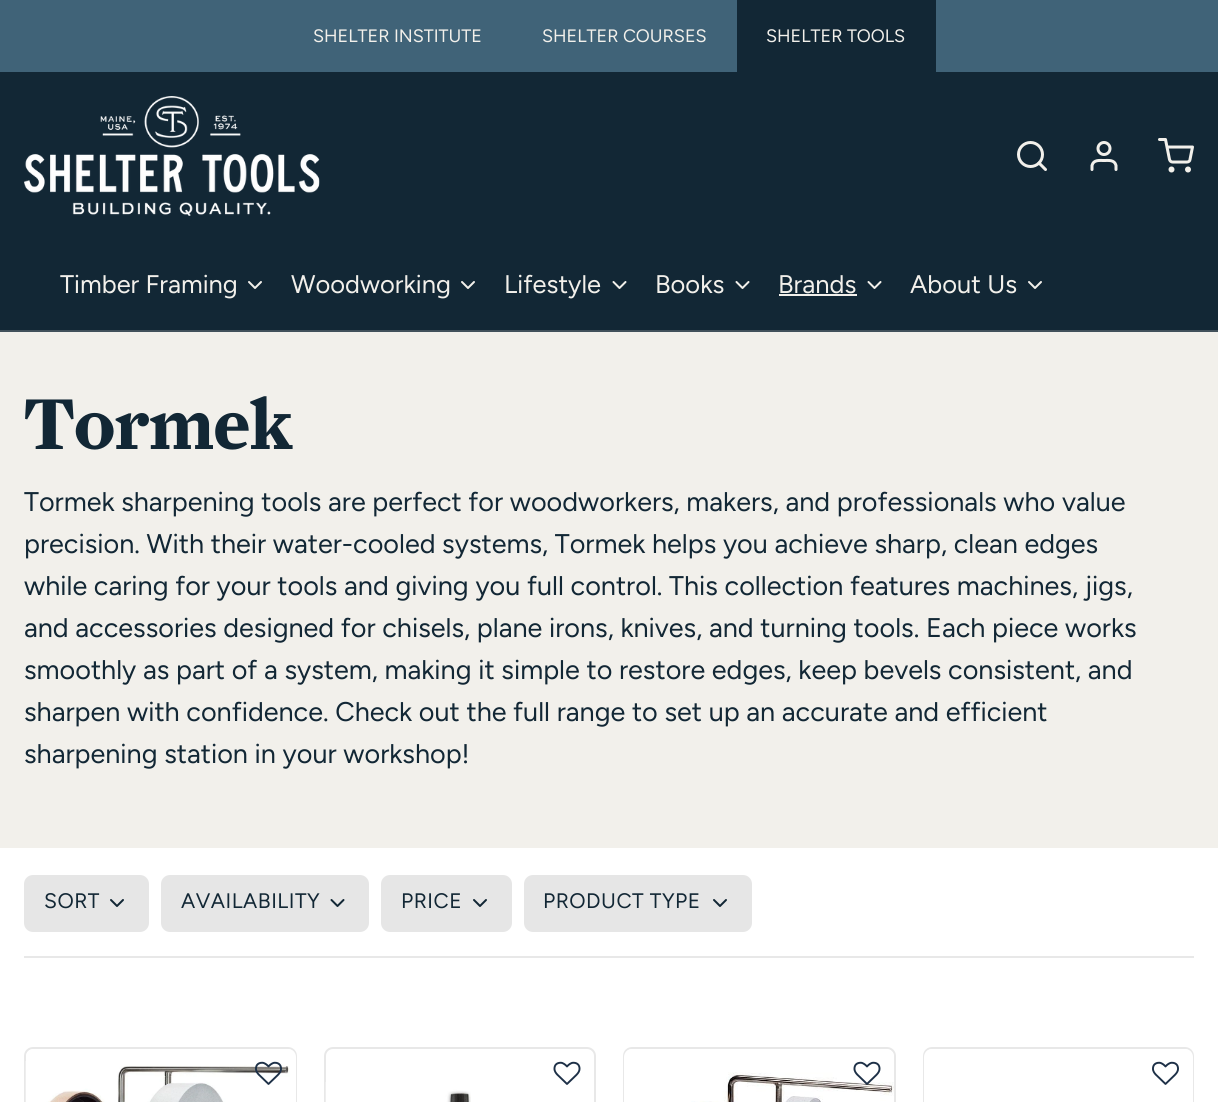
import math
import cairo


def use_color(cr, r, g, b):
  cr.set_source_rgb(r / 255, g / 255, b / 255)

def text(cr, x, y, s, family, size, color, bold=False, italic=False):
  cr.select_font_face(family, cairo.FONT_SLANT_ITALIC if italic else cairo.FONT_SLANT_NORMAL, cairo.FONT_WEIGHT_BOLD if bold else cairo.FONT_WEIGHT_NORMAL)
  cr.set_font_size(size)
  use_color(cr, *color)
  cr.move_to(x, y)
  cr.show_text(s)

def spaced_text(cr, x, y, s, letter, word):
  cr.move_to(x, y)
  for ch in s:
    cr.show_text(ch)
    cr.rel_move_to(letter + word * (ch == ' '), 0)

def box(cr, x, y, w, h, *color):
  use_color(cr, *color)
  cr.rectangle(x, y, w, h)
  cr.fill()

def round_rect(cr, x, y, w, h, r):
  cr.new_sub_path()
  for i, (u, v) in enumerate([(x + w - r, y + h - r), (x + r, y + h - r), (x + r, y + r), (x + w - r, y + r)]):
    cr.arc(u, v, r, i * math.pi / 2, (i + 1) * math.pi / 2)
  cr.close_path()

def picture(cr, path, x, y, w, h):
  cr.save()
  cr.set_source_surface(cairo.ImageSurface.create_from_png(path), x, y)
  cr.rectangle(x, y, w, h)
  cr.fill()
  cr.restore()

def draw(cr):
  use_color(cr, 255, 255, 255)
  cr.paint()
  box(cr, 0, 0, 1218, 72, 64, 99, 120)
  box(cr, 737, 0, 199, 72, 18, 39, 53)
  box(cr, 0, 72, 1218, 258, 18, 39, 53)
  box(cr, 0, 330, 1218, 2, 66, 81, 91)
  picture(cr, "img_01.png", 24, 96, 296, 120)
  cr.arc(1030.5, 154.5, 12, 0, 2 * math.pi)
  use_color(cr, 242, 240, 235)
  cr.set_line_width(3)
  cr.stroke()
  cr.new_path()
  cr.move_to(1045.5, 169.5)
  cr.line_to(1039, 163)
  cr.set_line_cap(cairo.LINE_CAP_ROUND)
  cr.set_line_join(cairo.LINE_JOIN_ROUND)
  cr.stroke()
  cr.new_path()
  cr.move_to(1116, 169.5)
  cr.line_to(1116, 165.5)
  cr.curve_to(1114.5, 159.5, 1108.5, 160.5, 1104, 160.5)
  cr.curve_to(1099.5, 160.5, 1093.5, 159.5, 1092, 165.5)
  cr.line_to(1092, 169.5)
  cr.stroke()
  cr.arc(1104, 148.5, 6, 0, 2 * math.pi)
  cr.set_line_cap(cairo.LINE_CAP_BUTT)
  cr.set_line_join(cairo.LINE_JOIN_MITER)
  cr.stroke()
  cr.arc(1171.5, 169.5, 1.5, 0, 2 * math.pi)
  cr.stroke()
  cr.arc(1188, 169.5, 1.5, 0, 2 * math.pi)
  cr.stroke()
  cr.new_path()
  cr.move_to(1159.5, 139.5)
  cr.line_to(1165.5, 139.5)
  cr.line_to(1169.5, 159.5)
  cr.curve_to(1170, 161, 1171, 162, 1172.5, 162)
  cr.line_to(1187, 162)
  cr.curve_to(1188.5, 162, 1190, 161, 1190, 159.5)
  cr.line_to(1192.5, 147)
  cr.line_to(1167, 147)
  cr.set_line_cap(cairo.LINE_CAP_ROUND)
  cr.set_line_join(cairo.LINE_JOIN_ROUND)
  cr.stroke()
  cr.new_path()
  cr.move_to(249, 282)
  cr.line_to(255, 288)
  cr.line_to(261, 282)
  cr.set_line_width(2)
  cr.stroke()
  cr.new_path()
  cr.move_to(462, 282)
  cr.line_to(468, 288)
  cr.line_to(474, 282)
  cr.stroke()
  cr.new_path()
  cr.move_to(613.5, 282)
  cr.line_to(619.5, 288)
  cr.line_to(625.5, 282)
  cr.stroke()
  cr.new_path()
  cr.move_to(736.5, 282)
  cr.line_to(742.5, 288)
  cr.line_to(748.5, 282)
  cr.stroke()
  box(cr, 779, 294, 78, 2, 242, 240, 235)
  cr.new_path()
  cr.move_to(868.5, 282)
  cr.line_to(874.5, 288)
  cr.line_to(880.5, 282)
  cr.stroke()
  cr.new_path()
  cr.move_to(1029, 282)
  cr.line_to(1035, 288)
  cr.line_to(1041, 282)
  cr.stroke()
  box(cr, 0, 332, 1218, 516, 242, 240, 235)
  box(cr, 24, 956, 1170, 2, 232, 232, 232)
  use_color(cr, 230, 230, 230)
  round_rect(cr, 25, 876, 123, 55, 8)
  cr.fill_preserve()
  cr.set_line_cap(cairo.LINE_CAP_BUTT)
  cr.set_line_join(cairo.LINE_JOIN_MITER)
  cr.stroke()
  cr.new_path()
  cr.move_to(111, 900)
  cr.line_to(117, 906)
  cr.line_to(123, 900)
  use_color(cr, 18, 39, 53)
  cr.set_line_cap(cairo.LINE_CAP_ROUND)
  cr.set_line_join(cairo.LINE_JOIN_ROUND)
  cr.stroke()
  use_color(cr, 230, 230, 230)
  round_rect(cr, 162, 876, 206, 55, 8)
  cr.fill_preserve()
  cr.set_line_cap(cairo.LINE_CAP_BUTT)
  cr.set_line_join(cairo.LINE_JOIN_MITER)
  cr.stroke()
  cr.new_path()
  cr.move_to(331.5, 900)
  cr.line_to(337.5, 906)
  cr.line_to(343.5, 900)
  use_color(cr, 18, 39, 53)
  cr.set_line_cap(cairo.LINE_CAP_ROUND)
  cr.set_line_join(cairo.LINE_JOIN_ROUND)
  cr.stroke()
  use_color(cr, 230, 230, 230)
  round_rect(cr, 382, 876, 129, 55, 8)
  cr.fill_preserve()
  cr.set_line_cap(cairo.LINE_CAP_BUTT)
  cr.set_line_join(cairo.LINE_JOIN_MITER)
  cr.stroke()
  cr.new_path()
  cr.move_to(474, 900)
  cr.line_to(480, 906)
  cr.line_to(486, 900)
  use_color(cr, 18, 39, 53)
  cr.set_line_cap(cairo.LINE_CAP_ROUND)
  cr.set_line_join(cairo.LINE_JOIN_ROUND)
  cr.stroke()
  use_color(cr, 230, 230, 230)
  round_rect(cr, 525, 876, 226, 55, 8)
  cr.fill_preserve()
  cr.set_line_cap(cairo.LINE_CAP_BUTT)
  cr.set_line_join(cairo.LINE_JOIN_MITER)
  cr.stroke()
  cr.new_path()
  cr.move_to(714, 900)
  cr.line_to(720, 906)
  cr.line_to(726, 900)
  use_color(cr, 18, 39, 53)
  cr.set_line_cap(cairo.LINE_CAP_ROUND)
  cr.set_line_join(cairo.LINE_JOIN_ROUND)
  cr.stroke()
  round_rect(cr, 25, 1048, 271, 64, 8)
  use_color(cr, 232, 232, 232)
  cr.set_line_cap(cairo.LINE_CAP_BUTT)
  cr.set_line_join(cairo.LINE_JOIN_MITER)
  cr.stroke()
  use_color(cr, 255, 255, 255)
  round_rect(cr, 26, 1049, 270, 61, 8)
  cr.fill()
  picture(cr, "img_02.png", 25, 1061, 265, 41)
  picture(cr, "img_03.png", 255, 1061, 27, 24)
  round_rect(cr, 325, 1048, 270, 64, 8)
  use_color(cr, 232, 232, 232)
  cr.stroke()
  picture(cr, "img_04.png", 325, 1082, 146, 20)
  picture(cr, "img_05.png", 553, 1061, 28, 24)
  round_rect(cr, 624, 1048, 271, 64, 8)
  cr.stroke()
  use_color(cr, 255, 255, 255)
  round_rect(cr, 624, 1049, 270, 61, 8)
  cr.fill()
  picture(cr, "img_06.png", 691, 1072, 203, 30)
  picture(cr, "img_07.png", 853, 1061, 28, 24)
  round_rect(cr, 924, 1048, 269, 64, 8)
  use_color(cr, 232, 232, 232)
  cr.stroke()
  use_color(cr, 255, 255, 255)
  round_rect(cr, 924, 1049, 269, 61, 8)
  cr.fill()
  picture(cr, "img_08.png", 1152, 1061, 27, 24)
  text(cr, 313, 42, "SHELTER INSTITUTE", "Figtree", 18, (242, 240, 235))
  text(cr, 542, 42, "SHELTER COURSES", "Figtree", 18, (242, 240, 235))
  text(cr, 766, 42, "SHELTER TOOLS", "Figtree", 18, (242, 240, 235))
  text(cr, 60, 293, "Timber Framing", "Figtree", 25.5, (242, 240, 235))
  text(cr, 291, 293, "Woodworking", "Figtree", 25.5, (242, 240, 235))
  text(cr, 504, 293, "Lifestyle", "Figtree", 25.5, (242, 240, 235))
  text(cr, 655, 293, "Books", "Figtree", 25.5, (242, 240, 235))
  text(cr, 778, 293, "Brands", "Figtree", 25.5, (242, 240, 235))
  text(cr, 910, 293, "About Us", "Figtree", 25.5, (242, 240, 235))
  text(cr, 24, 449, "Tormek", "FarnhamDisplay", 72, (18, 39, 53), bold=True)
  text(cr, 24, 511, "Tormek sharpening tools are perfect for woodworkers, makers, and professionals who value", "Figtree", 27, (18, 39, 53))
  text(cr, 24, 553, "precision. With their water-cooled systems, Tormek helps you achieve sharp, clean edges", "Figtree", 27, (18, 39, 53))
  text(cr, 24, 595, "while caring for your tools and giving you full control. This collection features machines, jigs,", "Figtree", 27, (18, 39, 53))
  text(cr, 24, 637, "and accessories designed for chisels, plane irons, knives, and turning tools. Each piece works", "Figtree", 27, (18, 39, 53))
  text(cr, 24, 679, "smoothly as part of a system, making it simple to restore edges, keep bevels consistent, and", "Figtree", 27, (18, 39, 53))
  text(cr, 24, 721, "sharpen with confidence. Check out the full range to set up an accurate and efficient", "Figtree", 27, (18, 39, 53))
  text(cr, 24, 763, "sharpening station in your workshop!", "Figtree", 27, (18, 39, 53))
  cr.set_font_size(21)
  spaced_text(cr, 44, 908, "SORT", 0.5, 0)
  spaced_text(cr, 181, 908, "AVAILABILITY", 0.5, 0)
  spaced_text(cr, 401, 908, "PRICE", 0.5, 0)
  spaced_text(cr, 543, 908, "PRODUCT TYPE", 0.5, 0)


surface = cairo.ImageSurface(cairo.FORMAT_RGB24, 1218, 1102)
cr = cairo.Context(surface)
options = cairo.FontOptions()
options.set_hint_metrics(cairo.HINT_METRICS_OFF)
options.set_hint_style(cairo.HINT_STYLE_NONE)
cr.set_font_options(options)
cr.set_miter_limit(4)
draw(cr)
surface.write_to_png("out.png")
